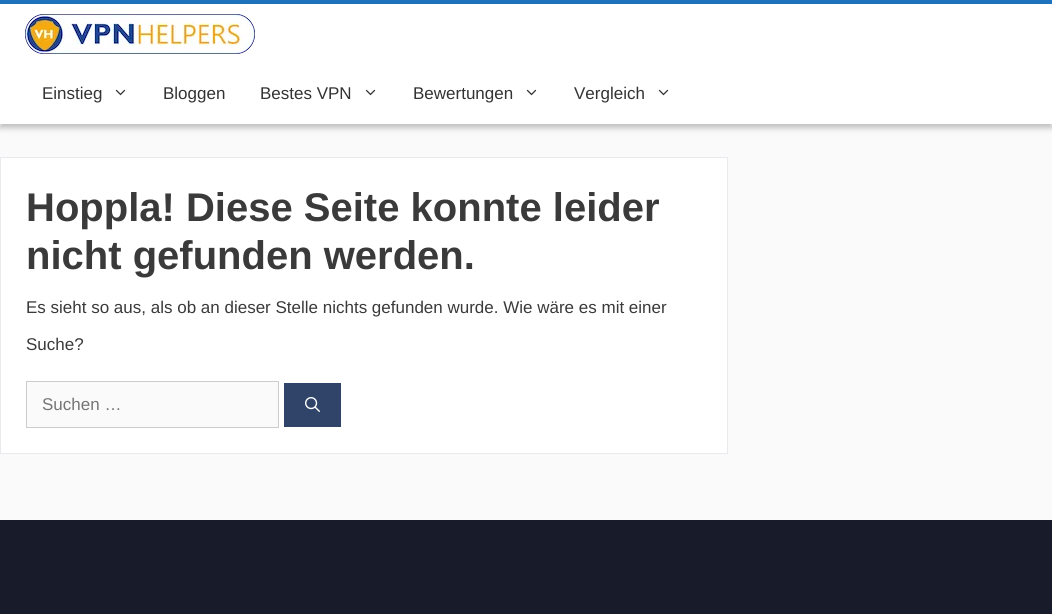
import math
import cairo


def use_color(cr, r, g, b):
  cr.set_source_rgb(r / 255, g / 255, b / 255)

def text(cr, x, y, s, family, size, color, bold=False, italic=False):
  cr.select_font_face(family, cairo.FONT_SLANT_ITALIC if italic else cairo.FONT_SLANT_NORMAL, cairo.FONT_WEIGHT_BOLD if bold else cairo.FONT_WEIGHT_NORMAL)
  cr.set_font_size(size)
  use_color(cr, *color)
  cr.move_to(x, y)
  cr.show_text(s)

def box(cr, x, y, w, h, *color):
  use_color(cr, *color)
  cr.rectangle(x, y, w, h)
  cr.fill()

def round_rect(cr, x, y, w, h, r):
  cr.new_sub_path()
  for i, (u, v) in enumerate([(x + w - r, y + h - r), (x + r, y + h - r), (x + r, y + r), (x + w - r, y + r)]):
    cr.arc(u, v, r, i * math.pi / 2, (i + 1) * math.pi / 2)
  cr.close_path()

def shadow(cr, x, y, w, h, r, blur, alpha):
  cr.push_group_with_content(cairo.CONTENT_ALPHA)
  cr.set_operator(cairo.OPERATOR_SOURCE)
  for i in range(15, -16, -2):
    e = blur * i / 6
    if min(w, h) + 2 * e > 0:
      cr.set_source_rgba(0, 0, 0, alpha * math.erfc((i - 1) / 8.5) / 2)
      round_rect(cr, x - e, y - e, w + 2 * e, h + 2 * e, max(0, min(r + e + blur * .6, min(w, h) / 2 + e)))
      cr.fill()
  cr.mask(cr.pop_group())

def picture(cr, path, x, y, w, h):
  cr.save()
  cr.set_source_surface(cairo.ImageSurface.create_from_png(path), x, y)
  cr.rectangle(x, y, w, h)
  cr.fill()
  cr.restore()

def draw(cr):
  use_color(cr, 250, 250, 250)
  cr.paint()
  box(cr, 0, 0, 1052, 4, 30, 115, 190)
  use_color(cr, 0, 0, 0)
  shadow(cr, 0, 8, 1052, 120, 0, 3, 0.24)
  box(cr, 0, 4, 1052, 120, 255, 255, 255)
  picture(cr, "img_01.png", 25, 14, 230, 40)
  picture(cr, "img_02.png", 115, 89, 11, 7)
  picture(cr, "img_02.png", 365, 89, 11, 7)
  picture(cr, "img_02.png", 526, 89, 11, 7)
  picture(cr, "img_02.png", 658, 89, 11, 7)
  cr.rectangle(0.5, 157.5, 727, 296)
  cr.fill_preserve()
  use_color(cr, 232, 234, 237)
  cr.set_line_width(1)
  cr.stroke()
  use_color(cr, 250, 250, 250)
  cr.rectangle(26.5, 381.5, 252, 46)
  cr.fill_preserve()
  use_color(cr, 204, 204, 204)
  cr.stroke()
  box(cr, 284, 383, 57, 44, 47, 68, 104)
  picture(cr, "img_03.png", 305, 397, 15, 15)
  box(cr, 0, 520, 1052, 94, 24, 27, 41)
  text(cr, 42, 99, "Einstieg", "Liberation Sans", 17, (51, 51, 51))
  text(cr, 163, 99, "Bloggen", "Liberation Sans", 17, (51, 51, 51))
  text(cr, 260, 99, "Bestes VPN", "Liberation Sans", 17, (51, 51, 51))
  text(cr, 413, 99, "Bewertungen", "Liberation Sans", 17, (51, 51, 51))
  text(cr, 574, 99, "Vergleich", "Liberation Sans", 17, (51, 51, 51))
  text(cr, 26, 221, "Hoppla! Diese Seite konnte leider", "Liberation Sans", 40, (58, 58, 58), bold=True)
  text(cr, 26, 269, "nicht gefunden werden.", "Liberation Sans", 40, (58, 58, 58), bold=True)
  text(cr, 26, 313, "Es sieht so aus, als ob an dieser Stelle nichts gefunden wurde. Wie wäre es mit einer", "Liberation Sans", 17, (58, 58, 58))
  text(cr, 26, 350, "Suche?", "Liberation Sans", 17, (58, 58, 58))
  text(cr, 42, 410, "Suchen …", "Liberation Sans", 17, (117, 117, 117))


surface = cairo.ImageSurface(cairo.FORMAT_RGB24, 1052, 614)
cr = cairo.Context(surface)
options = cairo.FontOptions()
options.set_hint_metrics(cairo.HINT_METRICS_OFF)
options.set_hint_style(cairo.HINT_STYLE_NONE)
cr.set_font_options(options)
cr.set_miter_limit(4)
draw(cr)
surface.write_to_png("out.png")
